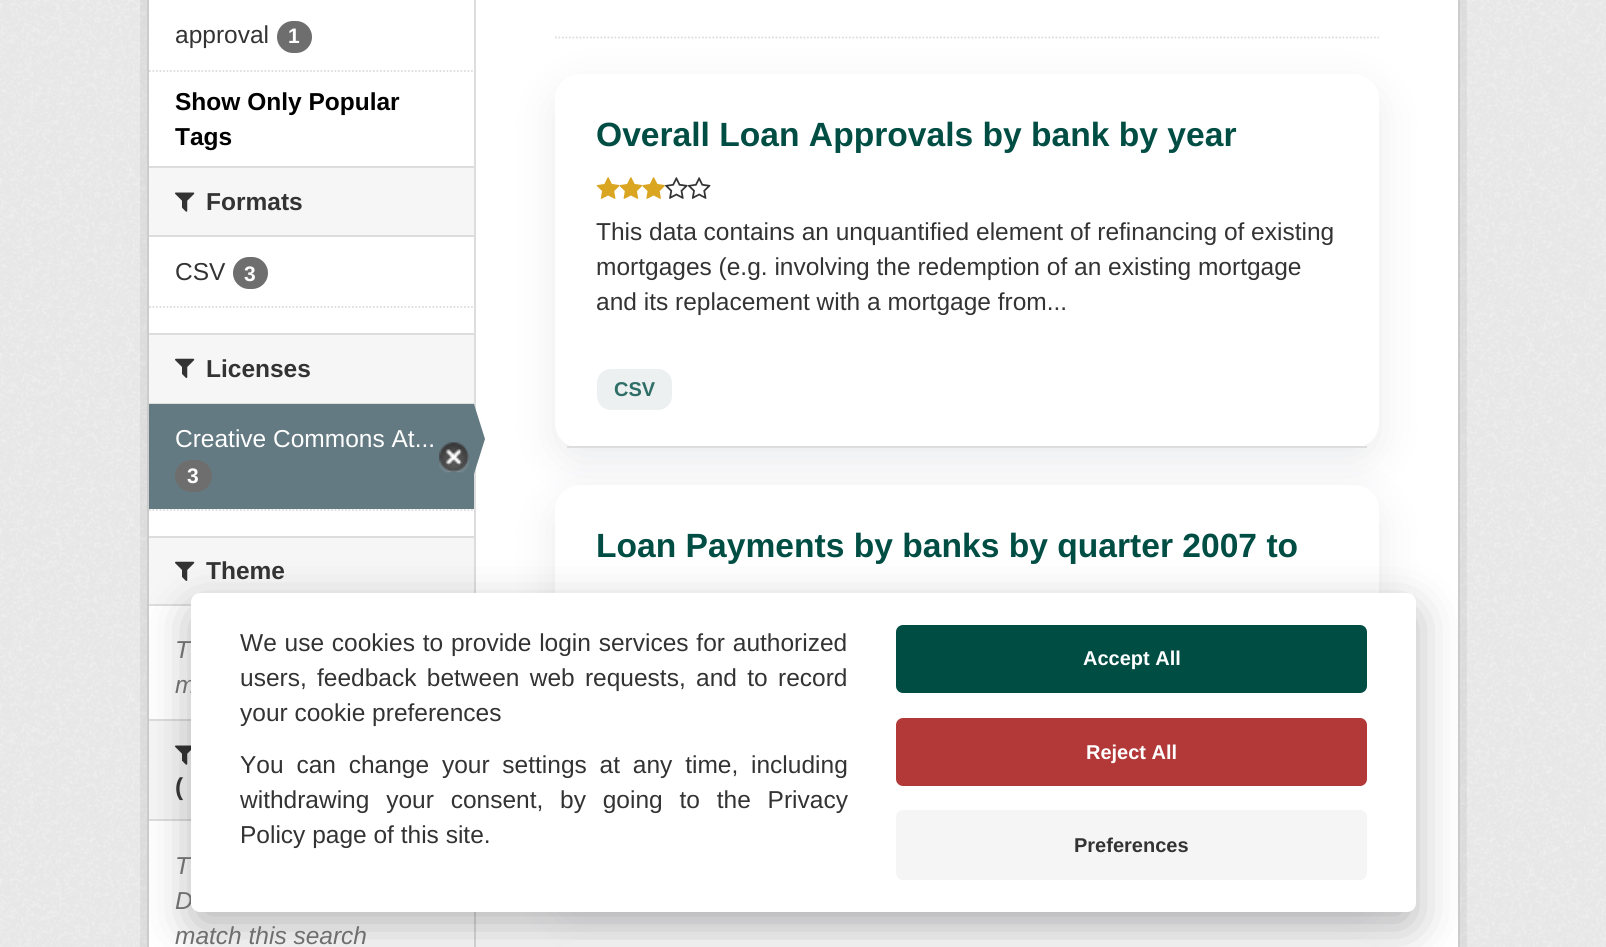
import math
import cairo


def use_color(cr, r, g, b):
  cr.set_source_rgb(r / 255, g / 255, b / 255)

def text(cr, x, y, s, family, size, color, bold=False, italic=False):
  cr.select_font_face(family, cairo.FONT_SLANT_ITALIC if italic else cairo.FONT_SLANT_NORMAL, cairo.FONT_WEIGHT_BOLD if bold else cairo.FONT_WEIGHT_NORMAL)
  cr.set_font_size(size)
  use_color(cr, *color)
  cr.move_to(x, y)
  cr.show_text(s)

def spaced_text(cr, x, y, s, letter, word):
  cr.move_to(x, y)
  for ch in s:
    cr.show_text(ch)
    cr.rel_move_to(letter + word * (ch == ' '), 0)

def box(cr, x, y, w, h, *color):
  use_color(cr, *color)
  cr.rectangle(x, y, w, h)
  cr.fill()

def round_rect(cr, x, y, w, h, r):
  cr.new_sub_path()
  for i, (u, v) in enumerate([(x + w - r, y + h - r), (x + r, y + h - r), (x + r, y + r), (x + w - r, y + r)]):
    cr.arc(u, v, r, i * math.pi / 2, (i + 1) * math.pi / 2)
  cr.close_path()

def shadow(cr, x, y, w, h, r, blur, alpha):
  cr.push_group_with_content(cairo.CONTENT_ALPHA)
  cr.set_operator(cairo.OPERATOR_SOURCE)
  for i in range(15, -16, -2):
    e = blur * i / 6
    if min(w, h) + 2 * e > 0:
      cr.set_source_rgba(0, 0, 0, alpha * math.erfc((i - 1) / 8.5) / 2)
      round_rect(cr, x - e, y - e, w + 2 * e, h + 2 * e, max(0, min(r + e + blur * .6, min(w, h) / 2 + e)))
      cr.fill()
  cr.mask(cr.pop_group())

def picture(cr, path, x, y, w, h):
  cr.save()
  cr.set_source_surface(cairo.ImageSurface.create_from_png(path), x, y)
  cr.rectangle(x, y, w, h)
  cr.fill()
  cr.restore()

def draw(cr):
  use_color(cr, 238, 238, 238)
  cr.paint()
  picture(cr, "img_01.png", 0, 0, 1606, 947)
  cr.rectangle(143.5, -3.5, 1320, 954)
  cr.set_source_rgba(0, 0, 0, 0.05)
  cr.set_line_width(7)
  cr.stroke()
  use_color(cr, 255, 255, 255)
  cr.rectangle(148, -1, 1311, 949)
  cr.fill_preserve()
  use_color(cr, 204, 204, 204)
  cr.set_line_width(2)
  cr.stroke()
  use_color(cr, 110, 110, 110)
  round_rect(cr, 277, 21, 35, 32, 16)
  cr.fill()
  cr.new_path()
  cr.move_to(149, 71)
  cr.line_to(474, 71)
  use_color(cr, 221, 221, 221)
  cr.set_line_width(1.8)
  cr.set_dash([1.75, 1.75])
  cr.stroke()
  box(cr, 149, 168, 325, 67, 246, 246, 246)
  box(cr, 149, 166, 325, 2, 221, 221, 221)
  box(cr, 149, 235, 325, 2, 221, 221, 221)
  picture(cr, "img_02.png", 175, 192, 20, 20)
  use_color(cr, 110, 110, 110)
  round_rect(cr, 233, 257, 35, 32, 16)
  cr.fill()
  cr.new_path()
  cr.move_to(149, 307)
  cr.line_to(474, 307)
  use_color(cr, 221, 221, 221)
  cr.stroke()
  box(cr, 149, 335, 325, 68, 246, 246, 246)
  box(cr, 149, 333, 325, 2, 221, 221, 221)
  box(cr, 149, 403, 325, 1, 221, 221, 221)
  picture(cr, "img_03.png", 175, 358, 20, 20)
  box(cr, 149, 404, 325, 105, 100, 122, 130)
  box(cr, 474, 0, 2, 947, 221, 221, 221)
  use_color(cr, 100, 122, 130)
  cr.new_path()
  cr.move_to(474, 474)
  cr.line_to(474, 404)
  cr.line_to(485, 439)
  cr.close_path()
  cr.fill()
  picture(cr, "img_04.png", 439, 442, 30, 31)
  use_color(cr, 110, 110, 110)
  round_rect(cr, 175, 460, 37, 32, 16)
  cr.fill()
  cr.new_path()
  cr.move_to(149, 510)
  cr.line_to(474, 510)
  use_color(cr, 221, 221, 221)
  cr.stroke()
  box(cr, 149, 538, 325, 66, 246, 246, 246)
  box(cr, 149, 536, 325, 2, 221, 221, 221)
  box(cr, 149, 604, 42, 2, 221, 221, 221)
  picture(cr, "img_03.png", 175, 561, 20, 20)
  box(cr, 149, 721, 42, 98, 246, 246, 246)
  box(cr, 149, 719, 42, 2, 221, 221, 221)
  box(cr, 149, 819, 42, 2, 221, 221, 221)
  picture(cr, "img_05.png", 175, 745, 16, 20)
  cr.new_path()
  cr.move_to(555, 37.5)
  cr.line_to(1379, 37.5)
  cr.stroke()
  use_color(cr, 149, 157, 165)
  shadow(cr, 555, 88, 824, 374, 25, 21, 0.2)
  use_color(cr, 255, 255, 255)
  round_rect(cr, 555, 74, 824, 374, 25)
  cr.fill()
  box(cr, 567, 446, 800, 2, 221, 221, 221)
  picture(cr, "img_06.png", 596, 177, 24, 22)
  picture(cr, "img_07.png", 619, 177, 24, 22)
  picture(cr, "img_08.png", 642, 177, 23, 22)
  picture(cr, "img_09.png", 665, 177, 23, 22)
  picture(cr, "img_10.png", 687, 177, 24, 22)
  use_color(cr, 236, 240, 241)
  round_rect(cr, 597, 369, 75, 41, 14)
  cr.fill()
  use_color(cr, 149, 157, 165)
  shadow(cr, 555, 499, 824, 418, 25, 21, 0.2)
  use_color(cr, 255, 255, 255)
  round_rect(cr, 555, 485, 824, 418, 25)
  cr.fill()
  round_rect(cr, 555, 940, 824, 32, 25)
  cr.fill()
  use_color(cr, 2, 2, 3)
  shadow(cr, 191, 609, 1225, 319, 9, 23, 0.28)
  text(cr, 175, 43, "approval", "Liberation Sans", 24.5, (51, 51, 51))
  text(cr, 288, 43, "1", "Liberation Sans", 21, (255, 255, 255), bold=True)
  text(cr, 175, 110, "Show Only Popular", "Liberation Sans", 24.5, (0, 0, 0), bold=True)
  text(cr, 175, 145, "Tags", "Liberation Sans", 24.5, (0, 0, 0), bold=True)
  text(cr, 206, 210, "Formats", "Liberation Sans", 24.5, (51, 51, 51), bold=True)
  text(cr, 175, 280, "CSV", "Liberation Sans", 24.5, (51, 51, 51))
  text(cr, 244, 281, "3", "Liberation Sans", 21, (255, 255, 255), bold=True)
  text(cr, 206, 377, "Licenses", "Liberation Sans", 24.5, (51, 51, 51), bold=True)
  text(cr, 175, 447, "Creative Commons At...", "Liberation Sans", 24.5, (255, 255, 255))
  text(cr, 187, 483, "3", "Liberation Sans", 21, (255, 255, 255), bold=True)
  text(cr, 206, 579, "Theme", "Liberation Sans", 24.5, (51, 51, 51), bold=True)
  text(cr, 175, 658, "T", "Liberation Sans", 24.5, (110, 110, 110), italic=True)
  text(cr, 175, 693, "m", "Liberation Sans", 24.5, (110, 110, 110), italic=True)
  text(cr, 175, 795, "(", "Liberation Sans", 24.5, (51, 51, 51), bold=True)
  text(cr, 175, 874, "T", "Liberation Sans", 24.5, (110, 110, 110), italic=True)
  text(cr, 175, 909, "D", "Liberation Sans", 24.5, (110, 110, 110), italic=True)
  text(cr, 175, 944, "match this search", "Liberation Sans", 24.5, (110, 110, 110), italic=True)
  text(cr, 596, 146, "Overall Loan Approvals by bank by year", "Liberation Sans", 33.6, (0, 77, 68), bold=True)
  text(cr, 596, 240, "This data contains an unquantified element of refinancing of existing", "Liberation Sans", 24.5, (51, 51, 51))
  text(cr, 596, 275, "mortgages (e.g. involving the redemption of an existing mortgage", "Liberation Sans", 24.5, (51, 51, 51))
  text(cr, 596, 310, "and its replacement with a mortgage from...", "Liberation Sans", 24.5, (51, 51, 51))
  text(cr, 614, 396, "CSV", "Liberation Sans", 20, (47, 110, 103), bold=True)
  text(cr, 596, 557, "Loan Payments by banks by quarter 2007 to", "Liberation Sans", 33.6, (0, 77, 68), bold=True)
  use_color(cr, 255, 255, 255)
  round_rect(cr, 191, 593, 1225, 319, 9)
  cr.fill()
  cr.select_font_face("Liberation Sans")
  cr.set_font_size(24.5)
  use_color(cr, 51, 51, 51)
  spaced_text(cr, 240, 651, "We use cookies to provide login services for authorized", 0, 1)
  spaced_text(cr, 240, 686, "users, feedback between web requests, and to record", 0, 3.5)
  text(cr, 240, 721, "your cookie preferences", "Liberation Sans", 24.5, (51, 51, 51))
  spaced_text(cr, 240, 773, "You can change your settings at any time, including", 0, 6)
  spaced_text(cr, 240, 808, "withdrawing your consent, by going to the Privacy", 0, 10)
  text(cr, 240, 843, "Policy page of this site.", "Liberation Sans", 24.5, (51, 51, 51))
  use_color(cr, 0, 77, 68)
  round_rect(cr, 896, 625, 471, 68, 7)
  cr.fill()
  text(cr, 1083, 665, "Accept All", "Liberation Sans", 20, (255, 255, 255), bold=True)
  use_color(cr, 179, 57, 57)
  round_rect(cr, 896, 718, 471, 68, 7)
  cr.fill()
  text(cr, 1086, 759, "Reject All", "Liberation Sans", 20, (255, 255, 255), bold=True)
  use_color(cr, 245, 245, 245)
  round_rect(cr, 896, 810, 471, 70, 7)
  cr.fill()
  text(cr, 1074, 852, "Preferences", "Liberation Sans", 20, (51, 51, 51), bold=True)


surface = cairo.ImageSurface(cairo.FORMAT_RGB24, 1606, 947)
cr = cairo.Context(surface)
options = cairo.FontOptions()
options.set_hint_metrics(cairo.HINT_METRICS_OFF)
options.set_hint_style(cairo.HINT_STYLE_NONE)
cr.set_font_options(options)
cr.set_miter_limit(4)
draw(cr)
surface.write_to_png("out.png")
